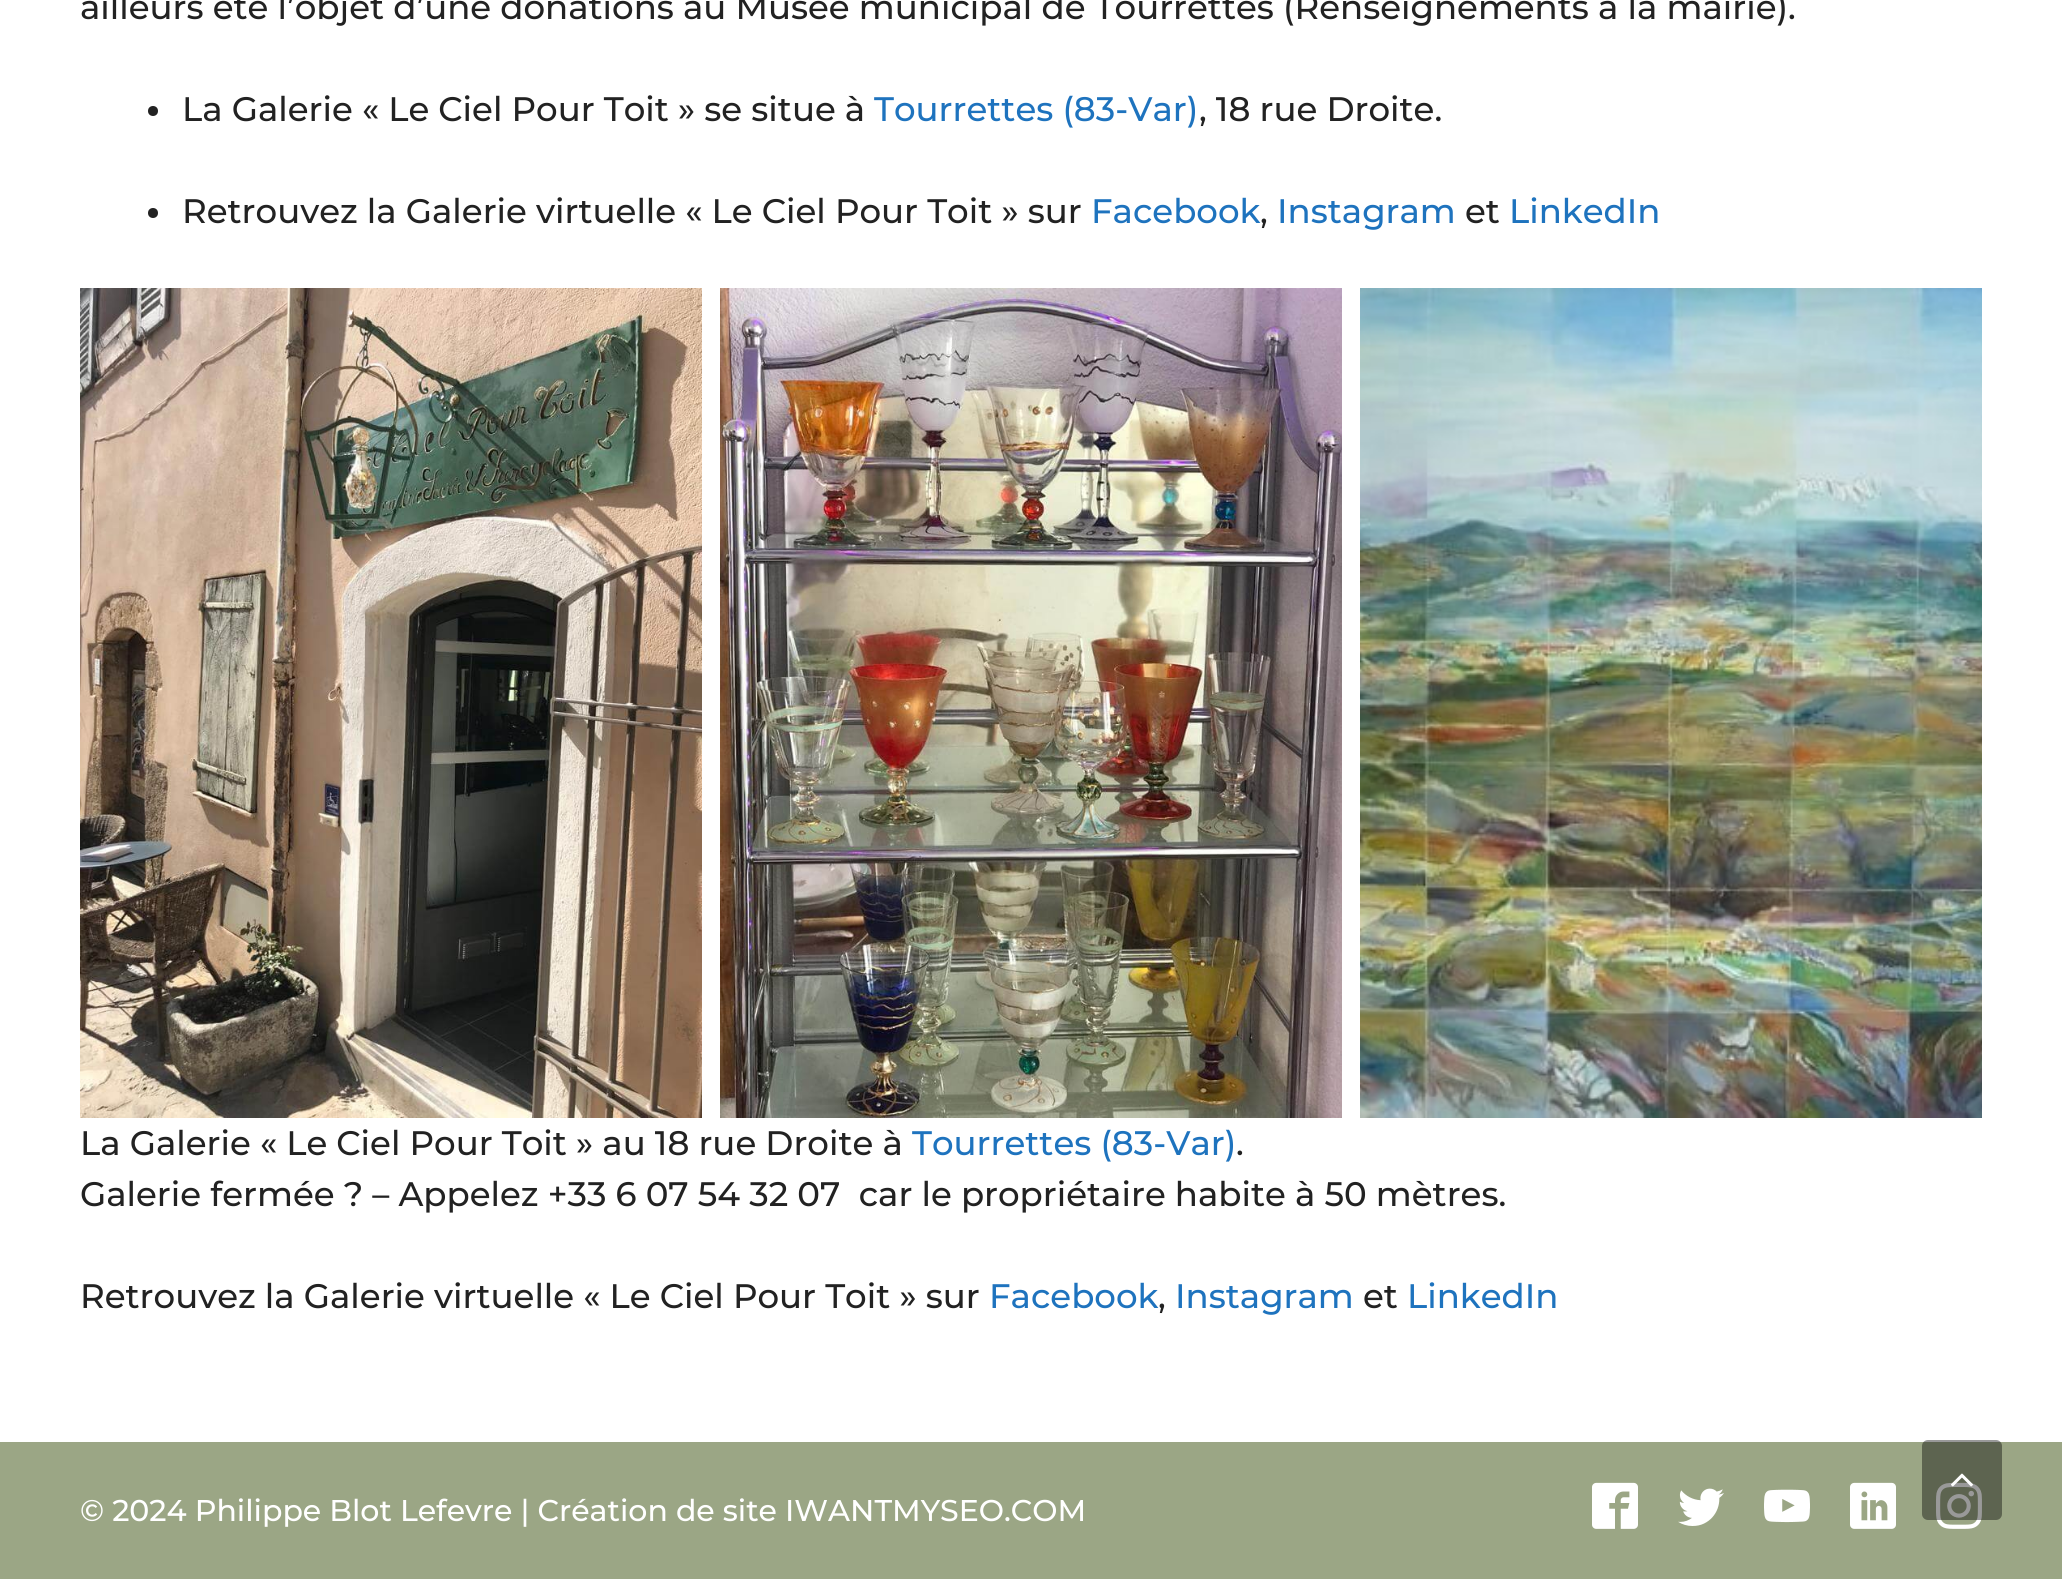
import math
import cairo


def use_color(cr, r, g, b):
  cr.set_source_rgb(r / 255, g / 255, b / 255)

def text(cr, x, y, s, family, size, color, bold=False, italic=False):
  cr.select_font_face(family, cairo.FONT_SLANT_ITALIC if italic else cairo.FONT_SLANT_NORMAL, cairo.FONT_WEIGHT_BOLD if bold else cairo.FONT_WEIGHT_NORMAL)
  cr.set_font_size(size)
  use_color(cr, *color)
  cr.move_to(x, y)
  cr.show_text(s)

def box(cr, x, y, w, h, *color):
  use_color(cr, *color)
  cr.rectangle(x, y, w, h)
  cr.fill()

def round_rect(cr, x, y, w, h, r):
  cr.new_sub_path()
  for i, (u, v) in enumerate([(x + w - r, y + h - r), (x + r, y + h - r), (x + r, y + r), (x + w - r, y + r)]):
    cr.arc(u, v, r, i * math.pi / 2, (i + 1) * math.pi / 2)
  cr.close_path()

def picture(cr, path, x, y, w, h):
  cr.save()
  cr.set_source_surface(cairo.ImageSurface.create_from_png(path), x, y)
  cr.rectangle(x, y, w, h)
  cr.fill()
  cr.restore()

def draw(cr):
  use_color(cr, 255, 255, 255)
  cr.paint()
  use_color(cr, 34, 34, 34)
  cr.arc(153, 111, 5, 0, 2 * math.pi)
  cr.fill()
  cr.arc(153, 213, 5, 0, 2 * math.pi)
  cr.fill()
  picture(cr, "img_01.png", 80, 288, 622, 830)
  picture(cr, "img_02.png", 720, 288, 622, 830)
  picture(cr, "img_03.png", 1360, 288, 622, 830)
  box(cr, 0, 1442, 2062, 137, 155, 166, 133)
  picture(cr, "img_04.png", 1592, 1482, 46, 47)
  picture(cr, "img_05.png", 1678, 1488, 46, 38)
  picture(cr, "img_06.png", 1764, 1489, 46, 34)
  picture(cr, "img_07.png", 1850, 1482, 46, 47)
  picture(cr, "img_08.png", 1936, 1482, 46, 47)
  cr.set_source_rgba(0, 0, 0, 0.4)
  round_rect(cr, 1922, 1440, 80, 80, 6)
  cr.fill()
  picture(cr, "img_09.png", 1951, 1473, 22, 14)
  text(cr, 80, 19, "ailleurs été l’objet d’une donations au Musée municipal de Tourrettes (Renseignements à la mairie).", "Montserrat Medium", 34, (34, 34, 34))
  text(cr, 182, 121, "La Galerie « Le Ciel Pour Toit » se situe à", "Montserrat Medium", 34, (34, 34, 34))
  text(cr, 874, 121, "Tourrettes (83-Var)", "Montserrat Medium", 34, (30, 115, 190))
  text(cr, 1199, 121, ", 18 rue Droite.", "Montserrat Medium", 34, (34, 34, 34))
  text(cr, 182, 223, "Retrouvez la Galerie virtuelle « Le Ciel Pour Toit » sur", "Montserrat Medium", 34, (34, 34, 34))
  text(cr, 1091, 223, "Facebook", "Montserrat Medium", 34, (30, 115, 190))
  text(cr, 1277, 223, "Instagram", "Montserrat Medium", 34, (30, 115, 190))
  text(cr, 1465, 223, "et", "Montserrat Medium", 34, (34, 34, 34))
  text(cr, 1509, 223, "LinkedIn", "Montserrat Medium", 34, (30, 115, 190))
  text(cr, 1260, 223, ",", "Montserrat Medium", 34, (34, 34, 34))
  text(cr, 80, 1155, "La Galerie « Le Ciel Pour Toit » au 18 rue Droite à", "Montserrat Medium", 34, (34, 34, 34))
  text(cr, 912, 1155, "Tourrettes (83-Var)", "Montserrat Medium", 34, (30, 115, 190))
  text(cr, 1236, 1155, ".", "Montserrat Medium", 34, (34, 34, 34))
  text(cr, 80, 1206, "Galerie fermée ? – Appelez +33 6 07 54 32 07  car le propriétaire habite à 50 mètres.", "Montserrat Medium", 34, (34, 34, 34))
  text(cr, 80, 1308, "Retrouvez la Galerie virtuelle « Le Ciel Pour Toit » sur", "Montserrat Medium", 34, (34, 34, 34))
  text(cr, 989, 1308, "Facebook", "Montserrat Medium", 34, (30, 115, 190))
  text(cr, 1158, 1308, ",", "Montserrat Medium", 34, (34, 34, 34))
  text(cr, 1175, 1308, "Instagram", "Montserrat Medium", 34, (30, 115, 190))
  text(cr, 1363, 1308, "et", "Montserrat Medium", 34, (34, 34, 34))
  text(cr, 1407, 1308, "LinkedIn", "Montserrat Medium", 34, (30, 115, 190))
  text(cr, 80, 1521, "© 2024 Philippe Blot Lefevre | Création de site IWANTMYSEO.COM", "Montserrat Medium", 30, (255, 255, 255))


surface = cairo.ImageSurface(cairo.FORMAT_RGB24, 2062, 1579)
cr = cairo.Context(surface)
options = cairo.FontOptions()
options.set_hint_metrics(cairo.HINT_METRICS_OFF)
options.set_hint_style(cairo.HINT_STYLE_NONE)
cr.set_font_options(options)
cr.set_miter_limit(4)
draw(cr)
surface.write_to_png("out.png")
